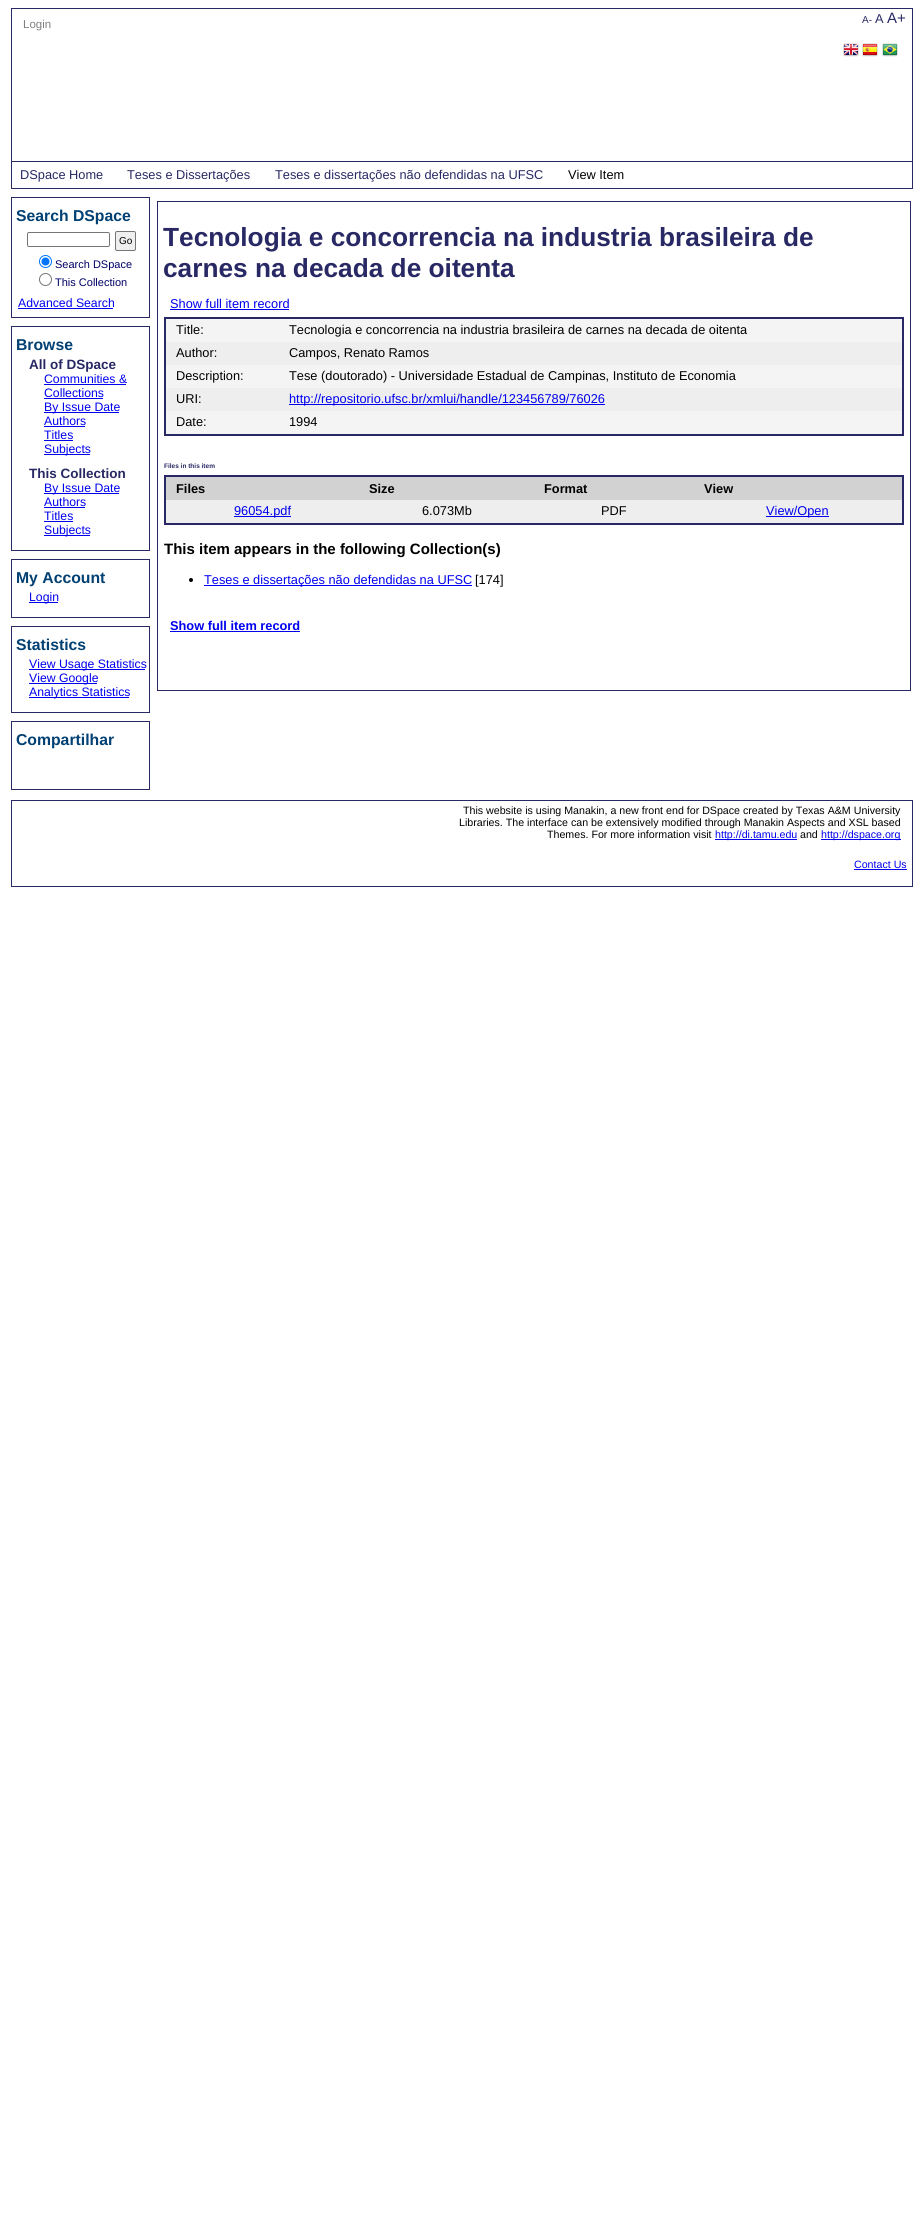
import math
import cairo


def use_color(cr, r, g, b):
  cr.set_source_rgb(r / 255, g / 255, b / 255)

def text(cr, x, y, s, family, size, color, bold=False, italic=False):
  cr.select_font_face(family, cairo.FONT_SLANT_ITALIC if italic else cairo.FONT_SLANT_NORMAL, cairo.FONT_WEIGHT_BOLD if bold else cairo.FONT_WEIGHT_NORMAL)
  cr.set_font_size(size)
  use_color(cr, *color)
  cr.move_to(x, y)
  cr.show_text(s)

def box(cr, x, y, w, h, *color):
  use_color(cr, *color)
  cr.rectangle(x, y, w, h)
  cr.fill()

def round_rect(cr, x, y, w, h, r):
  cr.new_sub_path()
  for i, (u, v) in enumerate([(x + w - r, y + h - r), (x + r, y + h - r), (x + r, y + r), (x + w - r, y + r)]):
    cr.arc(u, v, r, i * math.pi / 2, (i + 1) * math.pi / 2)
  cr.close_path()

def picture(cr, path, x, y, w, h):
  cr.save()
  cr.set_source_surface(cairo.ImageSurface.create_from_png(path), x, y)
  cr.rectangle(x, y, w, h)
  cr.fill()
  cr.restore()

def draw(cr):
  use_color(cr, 255, 255, 255)
  cr.paint()
  cr.rectangle(11.5, 8.5, 901, 180)
  use_color(cr, 40, 40, 100)
  cr.set_line_width(1)
  cr.stroke()
  picture(cr, "img_01.png", 843, 43, 16, 14)
  picture(cr, "img_02.png", 862, 43, 16, 14)
  picture(cr, "img_03.png", 882, 43, 16, 14)
  box(cr, 12, 161, 900, 1, 40, 40, 100)
  cr.rectangle(11.5, 197.5, 138, 120)
  cr.stroke()
  round_rect(cr, 27.5, 232.5, 82, 14, 1.5)
  use_color(cr, 118, 118, 118)
  cr.stroke()
  use_color(cr, 239, 239, 239)
  round_rect(cr, 115.5, 231.5, 20, 19, 1.5)
  cr.fill_preserve()
  use_color(cr, 118, 118, 118)
  cr.stroke()
  cr.arc(45.5, 261.5, 6, 0, 2 * math.pi)
  use_color(cr, 0, 117, 255)
  cr.stroke()
  cr.arc(45.5, 261.5, 4, 0, 2 * math.pi)
  cr.fill()
  cr.arc(45.5, 279.5, 6, 0, 2 * math.pi)
  use_color(cr, 118, 118, 118)
  cr.stroke()
  box(cr, 18, 308, 95, 1, 0, 0, 238)
  cr.rectangle(11.5, 326.5, 138, 224)
  use_color(cr, 40, 40, 100)
  cr.stroke()
  box(cr, 44, 384, 82, 1, 0, 0, 238)
  box(cr, 44, 398, 59, 1, 0, 0, 238)
  box(cr, 44, 412, 75, 1, 0, 0, 238)
  box(cr, 44, 426, 41, 1, 0, 0, 238)
  box(cr, 44, 440, 29, 1, 0, 0, 238)
  box(cr, 44, 454, 46, 1, 0, 0, 238)
  box(cr, 44, 493, 75, 1, 0, 0, 238)
  box(cr, 44, 507, 41, 1, 0, 0, 238)
  box(cr, 44, 521, 29, 1, 0, 0, 238)
  box(cr, 44, 535, 46, 1, 0, 0, 238)
  cr.rectangle(11.5, 559.5, 138, 58)
  use_color(cr, 40, 40, 100)
  cr.stroke()
  box(cr, 29, 602, 29, 1, 0, 0, 238)
  cr.rectangle(11.5, 626.5, 138, 86)
  use_color(cr, 40, 40, 100)
  cr.stroke()
  box(cr, 29, 669, 116, 1, 0, 0, 238)
  box(cr, 29, 683, 68, 1, 0, 0, 238)
  box(cr, 29, 697, 100, 1, 0, 0, 238)
  cr.rectangle(11.5, 721.5, 138, 68)
  use_color(cr, 40, 40, 100)
  cr.stroke()
  cr.rectangle(157.5, 201.5, 753, 489)
  cr.stroke()
  box(cr, 170, 309, 119, 1, 0, 0, 238)
  cr.rectangle(165, 318, 738, 117)
  use_color(cr, 40, 40, 100)
  cr.set_line_width(2)
  cr.stroke()
  box(cr, 166, 319, 736, 23, 244, 244, 244)
  box(cr, 166, 342, 736, 23, 238, 238, 238)
  box(cr, 166, 365, 736, 23, 244, 244, 244)
  box(cr, 166, 388, 736, 23, 238, 238, 238)
  box(cr, 289, 404, 316, 1, 0, 0, 238)
  box(cr, 166, 411, 736, 23, 244, 244, 244)
  cr.rectangle(165, 476, 738, 48)
  use_color(cr, 40, 40, 100)
  cr.stroke()
  box(cr, 166, 477, 736, 23, 210, 210, 210)
  box(cr, 166, 500, 736, 23, 238, 238, 238)
  box(cr, 234, 516, 57, 1, 0, 0, 238)
  box(cr, 766, 516, 63, 1, 0, 0, 238)
  use_color(cr, 0, 0, 0)
  cr.arc(191, 580, 2, 0, 2 * math.pi)
  cr.fill()
  box(cr, 204, 585, 268, 1, 0, 0, 238)
  box(cr, 170, 631, 130, 1, 0, 0, 238)
  cr.rectangle(11.5, 800.5, 901, 86)
  use_color(cr, 40, 40, 100)
  cr.set_line_width(1)
  cr.stroke()
  box(cr, 715, 839, 82, 1, 0, 0, 238)
  box(cr, 821, 839, 80, 1, 0, 0, 238)
  box(cr, 854, 869, 53, 1, 0, 0, 238)
  text(cr, 862, 23, "A-", "Liberation Sans", 10, (40, 40, 100))
  text(cr, 875, 23, "A", "Liberation Sans", 12.8, (40, 40, 100))
  text(cr, 887, 23, "A+", "Liberation Sans", 15, (40, 40, 100))
  text(cr, 23, 28, "Login", "Liberation Sans", 11.5, (128, 128, 128))
  text(cr, 20, 179, "DSpace Home", "Liberation Sans", 12.8, (40, 40, 100))
  text(cr, 127, 179, "Teses e Dissertações", "Liberation Sans", 12.8, (40, 40, 100))
  text(cr, 275, 179, "Teses e dissertações não defendidas na UFSC", "Liberation Sans", 12.8, (40, 40, 100))
  text(cr, 568, 179, "View Item", "Liberation Sans", 12.8, (0, 0, 0))
  text(cr, 16, 221, "Search DSpace", "Liberation Sans", 15.75, (1, 64, 115), bold=True)
  text(cr, 119, 244, "Go", "Liberation Sans", 10, (0, 0, 0))
  text(cr, 55, 268, "Search DSpace", "Liberation Sans", 11, (0, 0, 102))
  text(cr, 55, 286, "This Collection", "Liberation Sans", 11, (0, 0, 102))
  text(cr, 18, 307, "Advanced Search", "Liberation Sans", 12.25, (0, 0, 238))
  text(cr, 16, 350, "Browse", "Liberation Sans", 15.75, (1, 64, 115), bold=True)
  text(cr, 29, 369, "All of DSpace", "Liberation Sans", 13.5, (40, 40, 100), bold=True)
  text(cr, 44, 383, "Communities &", "Liberation Sans", 12.25, (0, 0, 238))
  text(cr, 44, 397, "Collections", "Liberation Sans", 12.25, (0, 0, 238))
  text(cr, 44, 411, "By Issue Date", "Liberation Sans", 12.25, (0, 0, 238))
  text(cr, 44, 425, "Authors", "Liberation Sans", 12.25, (0, 0, 238))
  text(cr, 44, 439, "Titles", "Liberation Sans", 12.25, (0, 0, 238))
  text(cr, 44, 453, "Subjects", "Liberation Sans", 12.25, (0, 0, 238))
  text(cr, 29, 478, "This Collection", "Liberation Sans", 13.5, (40, 40, 100), bold=True)
  text(cr, 44, 492, "By Issue Date", "Liberation Sans", 12.25, (0, 0, 238))
  text(cr, 44, 506, "Authors", "Liberation Sans", 12.25, (0, 0, 238))
  text(cr, 44, 520, "Titles", "Liberation Sans", 12.25, (0, 0, 238))
  text(cr, 44, 534, "Subjects", "Liberation Sans", 12.25, (0, 0, 238))
  text(cr, 16, 583, "My Account", "Liberation Sans", 15.75, (1, 64, 115), bold=True)
  text(cr, 29, 601, "Login", "Liberation Sans", 12.25, (0, 0, 238))
  text(cr, 16, 650, "Statistics", "Liberation Sans", 15.75, (1, 64, 115), bold=True)
  text(cr, 29, 668, "View Usage Statistics", "Liberation Sans", 12.25, (0, 0, 238))
  text(cr, 29, 682, "View Google", "Liberation Sans", 12.25, (0, 0, 238))
  text(cr, 29, 696, "Analytics Statistics", "Liberation Sans", 12.25, (0, 0, 238))
  text(cr, 16, 745, "Compartilhar", "Liberation Sans", 15.75, (1, 64, 115), bold=True)
  text(cr, 163, 246, "Tecnologia e concorrencia na industria brasileira de", "Liberation Sans", 26.25, (40, 40, 100), bold=True)
  text(cr, 163, 277, "carnes na decada de oitenta", "Liberation Sans", 26.25, (40, 40, 100), bold=True)
  text(cr, 170, 308, "Show full item record", "Liberation Sans", 12.8, (0, 0, 238))
  text(cr, 176, 334, "Title:", "Liberation Sans", 12.8, (0, 0, 0))
  text(cr, 289, 334, "Tecnologia e concorrencia na industria brasileira de carnes na decada de oitenta", "Liberation Sans", 12.8, (0, 0, 0))
  text(cr, 176, 357, "Author:", "Liberation Sans", 12.8, (0, 0, 0))
  text(cr, 289, 357, "Campos, Renato Ramos", "Liberation Sans", 12.8, (0, 0, 0))
  text(cr, 176, 380, "Description:", "Liberation Sans", 12.8, (0, 0, 0))
  text(cr, 289, 380, "Tese (doutorado) - Universidade Estadual de Campinas, Instituto de Economia", "Liberation Sans", 12.8, (0, 0, 0))
  text(cr, 176, 403, "URI:", "Liberation Sans", 12.8, (0, 0, 0))
  text(cr, 289, 403, "http://repositorio.ufsc.br/xmlui/handle/123456789/76026", "Liberation Sans", 12.8, (0, 0, 238))
  text(cr, 176, 426, "Date:", "Liberation Sans", 12.8, (0, 0, 0))
  text(cr, 289, 426, "1994", "Liberation Sans", 12.8, (0, 0, 0))
  cr.save()
  cr.rectangle(164, 290, 740, 349)
  cr.clip()
  text(cr, 164, 468, "Files in this item", "Liberation Sans", 6.5, (40, 40, 100), bold=True)
  cr.restore()
  text(cr, 176, 493, "Files", "Liberation Sans", 12.8, (0, 0, 0), bold=True)
  text(cr, 369, 493, "Size", "Liberation Sans", 12.8, (0, 0, 0), bold=True)
  text(cr, 544, 493, "Format", "Liberation Sans", 12.8, (0, 0, 0), bold=True)
  text(cr, 704, 493, "View", "Liberation Sans", 12.8, (0, 0, 0), bold=True)
  text(cr, 234, 515, "96054.pdf", "Liberation Sans", 12.8, (0, 0, 238))
  text(cr, 422, 515, "6.073Mb", "Liberation Sans", 12.8, (0, 0, 0))
  text(cr, 601, 515, "PDF", "Liberation Sans", 12.8, (0, 0, 0))
  text(cr, 766, 515, "View/Open", "Liberation Sans", 12.8, (0, 0, 238))
  cr.save()
  cr.rectangle(164, 290, 740, 349)
  cr.clip()
  text(cr, 164, 554, "This item appears in the following Collection(s)", "Liberation Sans", 15, (0, 0, 0), bold=True)
  cr.restore()
  text(cr, 204, 584, "Teses e dissertações não defendidas na UFSC", "Liberation Sans", 12.8, (0, 0, 238))
  text(cr, 475, 584, "[174]", "Liberation Sans", 12.8, (0, 0, 0))
  text(cr, 170, 630, "Show full item record", "Liberation Sans", 12.8, (0, 0, 238), bold=True)
  text(cr, 463, 814, "This website is using Manakin, a new front end for DSpace created by Texas A&M University", "Liberation Sans", 10.65, (0, 0, 0))
  text(cr, 459, 826, "Libraries. The interface can be extensively modified through Manakin Aspects and XSL based", "Liberation Sans", 10.65, (0, 0, 0))
  text(cr, 547, 838, "Themes. For more information visit", "Liberation Sans", 10.65, (0, 0, 0))
  text(cr, 715, 838, "http://di.tamu.edu", "Liberation Sans", 10.65, (0, 0, 238))
  text(cr, 800, 838, "and", "Liberation Sans", 10.65, (0, 0, 0))
  text(cr, 821, 838, "http://dspace.org", "Liberation Sans", 10.65, (0, 0, 238))
  text(cr, 854, 868, "Contact Us", "Liberation Sans", 10.65, (0, 0, 238))


surface = cairo.ImageSurface(cairo.FORMAT_RGB24, 921, 2220)
cr = cairo.Context(surface)
options = cairo.FontOptions()
options.set_hint_metrics(cairo.HINT_METRICS_OFF)
options.set_hint_style(cairo.HINT_STYLE_NONE)
cr.set_font_options(options)
cr.set_miter_limit(4)
draw(cr)
surface.write_to_png("out.png")
